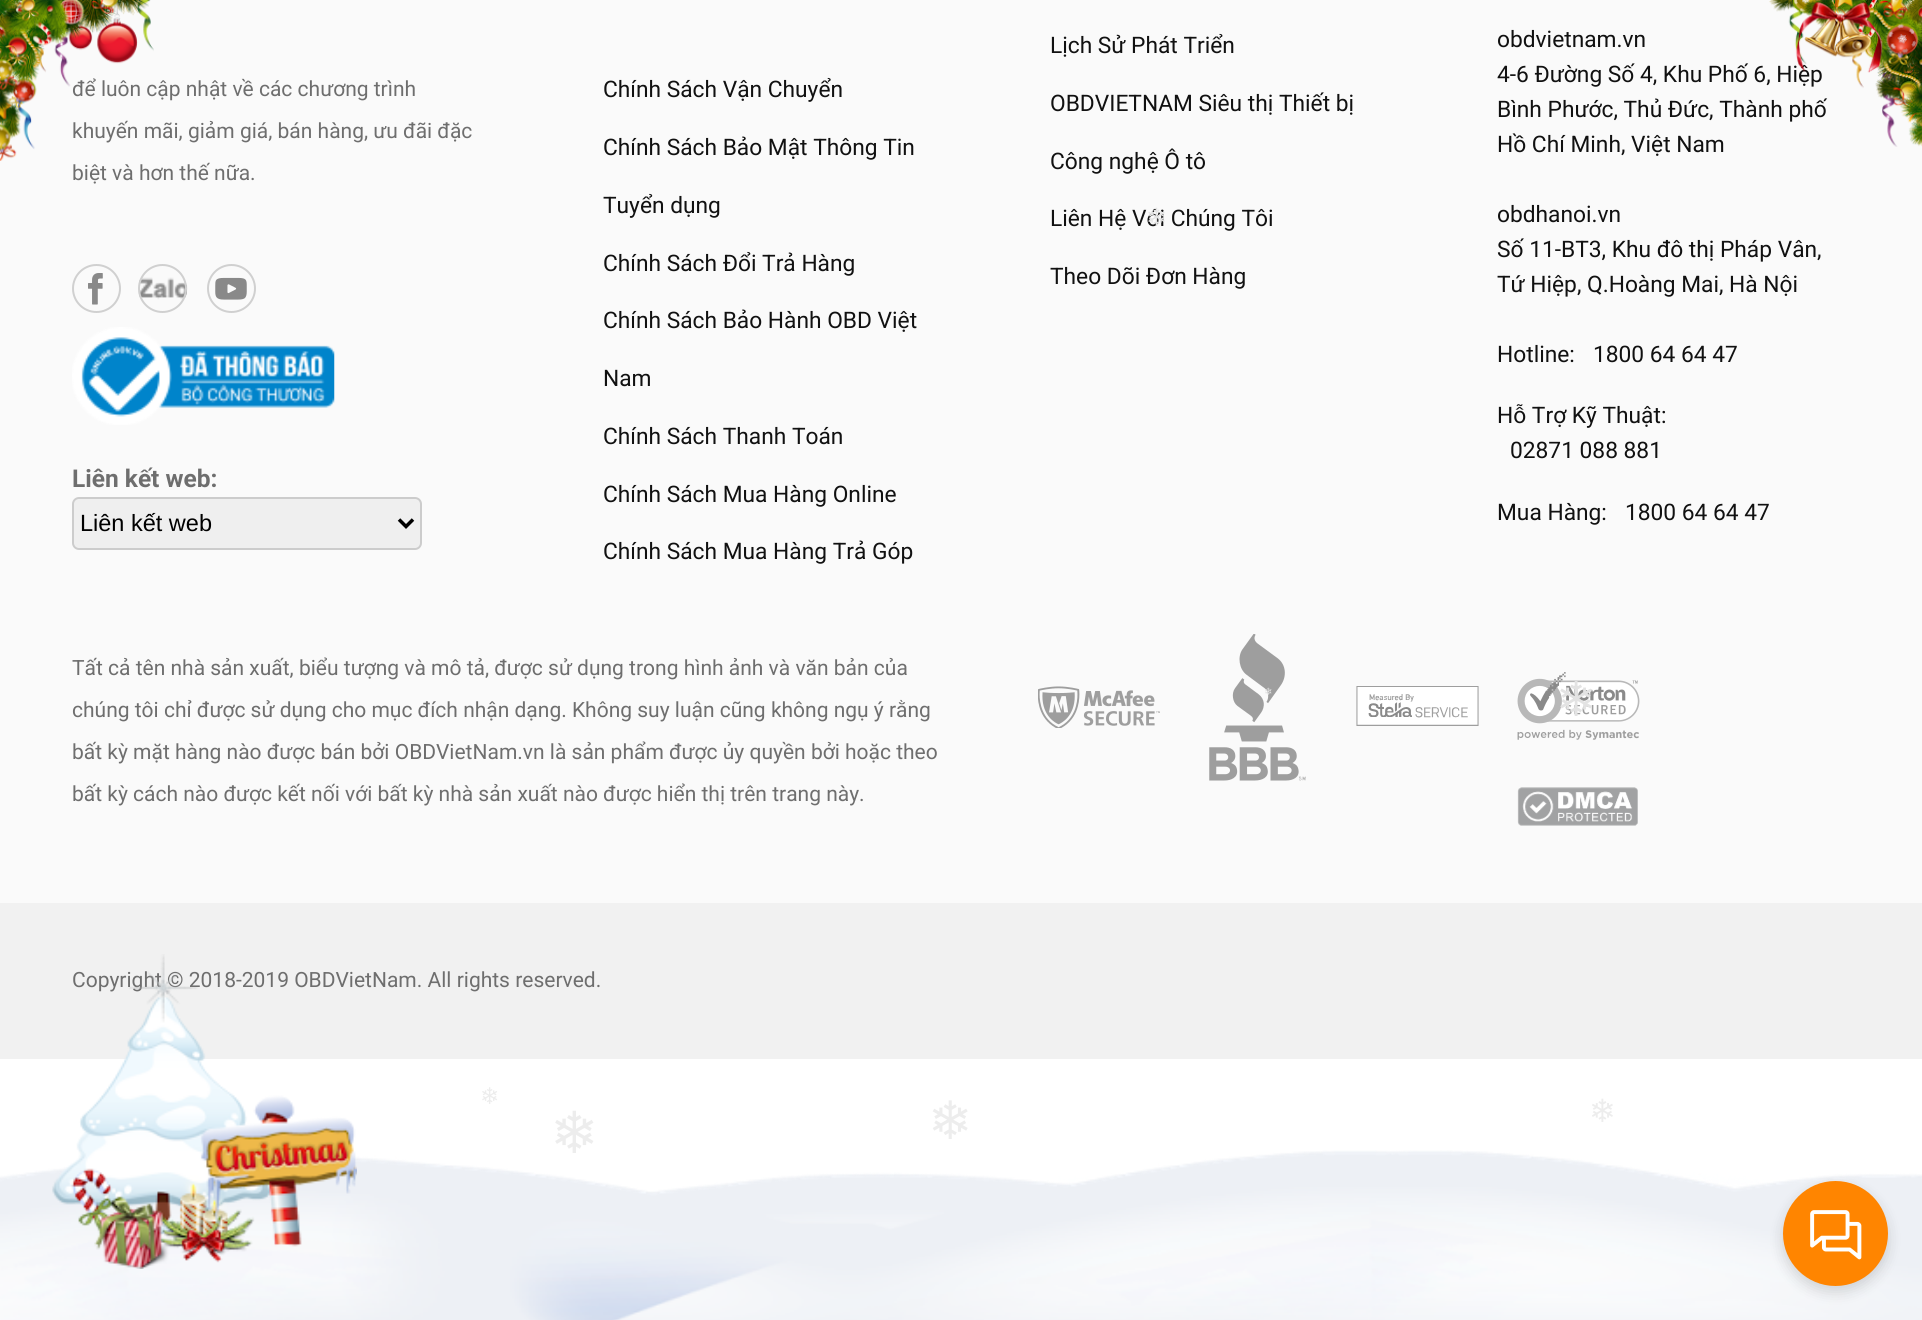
import math
import cairo


def use_color(cr, r, g, b):
  cr.set_source_rgb(r / 255, g / 255, b / 255)

def text(cr, x, y, s, family, size, color, bold=False, italic=False):
  cr.select_font_face(family, cairo.FONT_SLANT_ITALIC if italic else cairo.FONT_SLANT_NORMAL, cairo.FONT_WEIGHT_BOLD if bold else cairo.FONT_WEIGHT_NORMAL)
  cr.set_font_size(size)
  use_color(cr, *color)
  cr.move_to(x, y)
  cr.show_text(s)

def box(cr, x, y, w, h, *color):
  use_color(cr, *color)
  cr.rectangle(x, y, w, h)
  cr.fill()

def round_rect(cr, x, y, w, h, r):
  cr.new_sub_path()
  for i, (u, v) in enumerate([(x + w - r, y + h - r), (x + r, y + h - r), (x + r, y + r), (x + w - r, y + r)]):
    cr.arc(u, v, r, i * math.pi / 2, (i + 1) * math.pi / 2)
  cr.close_path()

def shadow(cr, x, y, w, h, r, blur, alpha):
  cr.push_group_with_content(cairo.CONTENT_ALPHA)
  cr.set_operator(cairo.OPERATOR_SOURCE)
  for i in range(15, -16, -2):
    e = blur * i / 6
    if min(w, h) + 2 * e > 0:
      cr.set_source_rgba(0, 0, 0, alpha * math.erfc((i - 1) / 8.5) / 2)
      round_rect(cr, x - e, y - e, w + 2 * e, h + 2 * e, max(0, min(r + e + blur * .6, min(w, h) / 2 + e)))
      cr.fill()
  cr.mask(cr.pop_group())

def picture(cr, path, x, y, w, h):
  cr.save()
  cr.set_source_surface(cairo.ImageSurface.create_from_png(path), x, y)
  cr.rectangle(x, y, w, h)
  cr.fill()
  cr.restore()

def draw(cr):
  use_color(cr, 255, 255, 255)
  cr.paint()
  box(cr, 0, 0, 1922, 903, 250, 250, 250)
  picture(cr, "img_03.png", 88, 273, 15, 32)
  cr.arc(96.5, 288.5, 23.5, 0, 2 * math.pi)
  use_color(cr, 208, 208, 208)
  cr.stroke()
  picture(cr, "img_04.png", 138, 277, 50, 23)
  cr.arc(162.5, 288.5, 23.5, 0, 2 * math.pi)
  cr.stroke()
  picture(cr, "img_05.png", 215, 277, 32, 23)
  cr.arc(231.5, 288.5, 23.5, 0, 2 * math.pi)
  cr.stroke()
  picture(cr, "img_06.png", 72, 327, 263, 98)
  use_color(cr, 239, 239, 239)
  round_rect(cr, 73, 498, 348, 51, 6)
  cr.fill_preserve()
  use_color(cr, 204, 204, 204)
  cr.stroke()
  cr.new_path()
  cr.move_to(399, 519.5)
  cr.line_to(406, 526.5)
  cr.line_to(413, 519.5)
  use_color(cr, 0, 0, 0)
  cr.set_line_width(3.5)
  cr.stroke()
  picture(cr, "img_07.png", 1038, 686, 122, 42)
  picture(cr, "img_08.png", 1209, 634, 97, 147)
  picture(cr, "img_09.png", 1356, 686, 123, 40)
  picture(cr, "img_10.png", 1517, 672, 123, 68)
  picture(cr, "img_11.png", 1517, 787, 121, 39)
  box(cr, 0, 903, 1922, 156, 241, 241, 241)
  text(cr, 72, 96, "để luôn cập nhật về các chương trình", "Roboto", 21, (110, 110, 110))
  text(cr, 72, 138, "khuyến mãi, giảm giá, bán hàng, ưu đãi đặc", "Roboto", 21, (110, 110, 110))
  picture(cr, "img_01.png", 0, 0, 154, 161)
  text(cr, 72, 180, "biệt và hơn thế nữa.", "Roboto", 21, (110, 110, 110))
  text(cr, 72, 487, "Liên kết web:", "Roboto", 24.5, (110, 110, 110), bold=True)
  text(cr, 80, 531, "Liên kết web", "Liberation Sans", 23.5, (0, 0, 0))
  text(cr, 603, 97, "Chính Sách Vận Chuyển", "Roboto", 22.75, (17, 17, 17))
  text(cr, 603, 155, "Chính Sách Bảo Mật Thông Tin", "Roboto", 22.75, (17, 17, 17))
  text(cr, 603, 213, "Tuyển dụng", "Roboto", 22.75, (17, 17, 17))
  text(cr, 603, 271, "Chính Sách Đổi Trả Hàng", "Roboto", 22.75, (17, 17, 17))
  text(cr, 603, 328, "Chính Sách Bảo Hành OBD Việt", "Roboto", 22.75, (17, 17, 17))
  text(cr, 603, 386, "Nam", "Roboto", 22.75, (17, 17, 17))
  text(cr, 603, 444, "Chính Sách Thanh Toán", "Roboto", 22.75, (17, 17, 17))
  text(cr, 603, 502, "Chính Sách Mua Hàng Online", "Roboto", 22.75, (17, 17, 17))
  text(cr, 603, 559, "Chính Sách Mua Hàng Trả Góp", "Roboto", 22.75, (17, 17, 17))
  text(cr, 1050, 53, "Lịch Sử Phát Triển", "Roboto", 22.75, (17, 17, 17))
  text(cr, 1050, 111, "OBDVIETNAM Siêu thị Thiết bị", "Roboto", 22.75, (17, 17, 17))
  text(cr, 1050, 169, "Công nghệ Ô tô", "Roboto", 22.75, (17, 17, 17))
  text(cr, 1050, 226, "Liên Hệ Với Chúng Tôi", "Roboto", 22.75, (17, 17, 17))
  text(cr, 1050, 284, "Theo Dõi Đơn Hàng", "Roboto", 22.75, (17, 17, 17))
  text(cr, 1497, 47, "obdvietnam.vn", "Roboto", 22.75, (17, 17, 17))
  text(cr, 1497, 82, "4-6 Đường Số 4, Khu Phố 6, Hiệp", "Roboto", 22.75, (17, 17, 17))
  text(cr, 1497, 117, "Bình Phước, Thủ Đức, Thành phố", "Roboto", 22.75, (17, 17, 17))
  picture(cr, "img_02.png", 1769, 0, 153, 147)
  text(cr, 1497, 152, "Hồ Chí Minh, Việt Nam", "Roboto", 22.75, (17, 17, 17))
  text(cr, 1497, 222, "obdhanoi.vn", "Roboto", 22.75, (17, 17, 17))
  text(cr, 1497, 257, "Số 11-BT3, Khu đô thị Pháp Vân,", "Roboto", 22.75, (17, 17, 17))
  text(cr, 1497, 292, "Tứ Hiệp, Q.Hoàng Mai, Hà Nội", "Roboto", 22.75, (17, 17, 17))
  text(cr, 1497, 362, "Hotline:", "Roboto", 22.75, (17, 17, 17))
  text(cr, 1593, 362, "1800 64 64 47", "Roboto", 22.75, (17, 17, 17))
  text(cr, 1497, 423, "Hỗ Trợ Kỹ Thuật:", "Roboto", 22.75, (17, 17, 17))
  text(cr, 1510, 458, "02871 088 881", "Roboto", 22.75, (17, 17, 17))
  text(cr, 1497, 520, "Mua Hàng:", "Roboto", 22.75, (17, 17, 17))
  text(cr, 1625, 520, "1800 64 64 47", "Roboto", 22.75, (17, 17, 17))
  text(cr, 72, 675, "Tất cả tên nhà sản xuất, biểu tượng và mô tả, được sử dụng trong hình ảnh và văn bản của", "Roboto", 21, (110, 110, 110))
  text(cr, 72, 717, "chúng tôi chỉ được sử dụng cho mục đích nhận dạng. Không suy luận cũng không ngụ ý rằng", "Roboto", 21, (110, 110, 110))
  text(cr, 72, 759, "bất kỳ mặt hàng nào được bán bởi OBDVietNam.vn là sản phẩm được ủy quyền bởi hoặc theo", "Roboto", 21, (110, 110, 110))
  text(cr, 72, 801, "bất kỳ cách nào được kết nối với bất kỳ nhà sản xuất nào được hiển thị trên trang này.", "Roboto", 21, (110, 110, 110))
  text(cr, 72, 987, "Copyright © 2018-2019 OBDVietNam. All rights reserved.", "Roboto", 21, (110, 110, 110))
  text(cr, 1146, 226, "❄", "DejaVu Sans", 25, (227, 227, 227))
  text(cr, 1264, 695, "❄", "DejaVu Sans", 10, (227, 227, 227))
  text(cr, 1556, 716, "❄", "DejaVu Sans", 48, (227, 227, 227))
  text(cr, 480, 1104, "❄", "DejaVu Sans", 23, (237, 237, 237))
  text(cr, 550, 1153, "❄", "DejaVu Sans", 58, (237, 237, 237))
  text(cr, 928, 1139, "❄", "DejaVu Sans", 53, (237, 237, 237))
  text(cr, 1589, 1122, "❄", "DejaVu Sans", 32, (237, 237, 237))
  picture(cr, "img_13.png", 0, 1150, 1922, 170)
  picture(cr, "img_12.png", 52, 954, 305, 315)
  use_color(cr, 0, 0, 0)
  shadow(cr, 1783, 1187, 105, 105, 52.5, 7, 0.15)
  use_color(cr, 255, 133, 0)
  cr.arc(1835.5, 1233.5, 52.5, 0, 2 * math.pi)
  cr.fill()
  picture(cr, "img_14.png", 1810, 1210, 52, 50)


surface = cairo.ImageSurface(cairo.FORMAT_RGB24, 1922, 1320)
cr = cairo.Context(surface)
options = cairo.FontOptions()
options.set_hint_metrics(cairo.HINT_METRICS_OFF)
options.set_hint_style(cairo.HINT_STYLE_NONE)
cr.set_font_options(options)
cr.set_miter_limit(4)
draw(cr)
surface.write_to_png("out.png")
